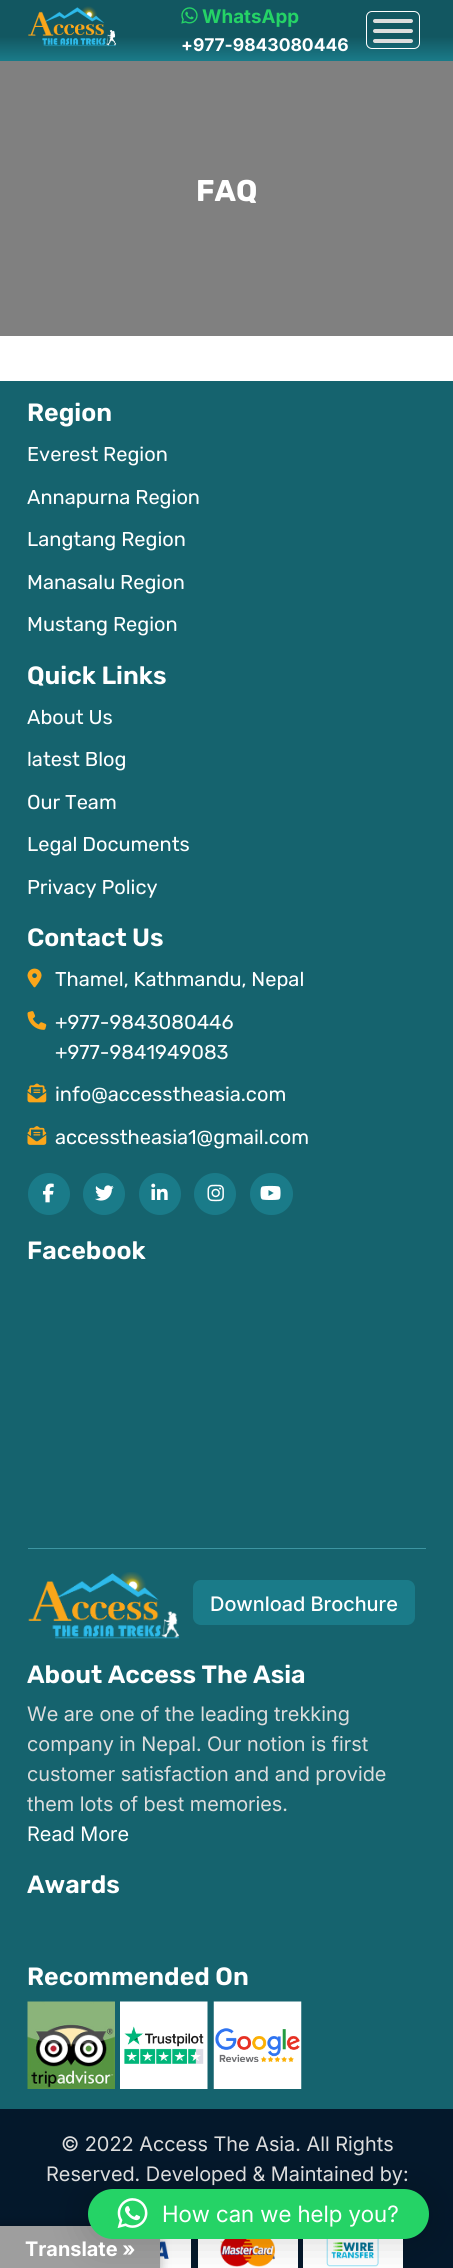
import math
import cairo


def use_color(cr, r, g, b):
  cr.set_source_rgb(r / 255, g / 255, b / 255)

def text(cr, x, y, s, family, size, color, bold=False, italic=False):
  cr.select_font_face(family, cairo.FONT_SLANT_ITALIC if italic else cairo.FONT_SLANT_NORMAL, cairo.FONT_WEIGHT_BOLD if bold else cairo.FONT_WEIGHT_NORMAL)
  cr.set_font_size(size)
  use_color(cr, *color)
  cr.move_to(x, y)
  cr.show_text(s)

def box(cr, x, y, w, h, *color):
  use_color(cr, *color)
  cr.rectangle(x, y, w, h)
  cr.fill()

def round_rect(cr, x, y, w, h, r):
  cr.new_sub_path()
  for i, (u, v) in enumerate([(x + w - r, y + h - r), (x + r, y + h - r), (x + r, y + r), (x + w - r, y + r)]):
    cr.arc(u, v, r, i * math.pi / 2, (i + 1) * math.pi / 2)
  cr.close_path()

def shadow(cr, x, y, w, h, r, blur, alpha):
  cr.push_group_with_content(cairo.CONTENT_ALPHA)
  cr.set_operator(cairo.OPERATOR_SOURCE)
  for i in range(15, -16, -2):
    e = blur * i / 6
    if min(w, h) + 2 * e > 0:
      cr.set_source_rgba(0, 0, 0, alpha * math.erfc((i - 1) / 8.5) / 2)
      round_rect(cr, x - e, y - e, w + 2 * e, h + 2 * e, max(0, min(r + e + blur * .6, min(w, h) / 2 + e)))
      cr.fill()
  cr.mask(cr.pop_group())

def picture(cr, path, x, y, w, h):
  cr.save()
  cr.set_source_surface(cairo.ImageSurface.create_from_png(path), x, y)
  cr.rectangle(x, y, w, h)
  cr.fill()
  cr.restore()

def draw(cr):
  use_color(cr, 255, 255, 255)
  cr.paint()
  gradient = cairo.LinearGradient(227, 0, 227, 61)
  gradient.add_color_stop_rgba(0.6, 0.071, 0.341, 0.38, 1)
  gradient.add_color_stop_rgba(1, 0.102, 0.482, 0.537, 1)
  cr.set_source(gradient)
  cr.rectangle(0, 0, 453, 61)
  cr.fill()
  picture(cr, "img_01.png", 28, 6, 89, 41)
  picture(cr, "img_02.png", 181, 7, 17, 17)
  round_rect(cr, 366.5, 11.5, 53, 37, 5.5)
  use_color(cr, 255, 255, 255)
  cr.set_line_width(1)
  cr.stroke()
  use_color(cr, 221, 221, 221)
  round_rect(cr, 373, 19, 40, 4, 2)
  cr.fill()
  round_rect(cr, 373, 29, 40, 4, 2)
  cr.fill()
  round_rect(cr, 373, 39, 40, 4, 2)
  cr.fill()
  box(cr, 0, 61, 453, 275, 128, 128, 128)
  box(cr, 0, 381, 453, 1728, 21, 99, 110)
  picture(cr, "img_03.png", 27, 968, 15, 20)
  picture(cr, "img_04.png", 27, 1011, 20, 19)
  picture(cr, "img_05.png", 27, 1083, 20, 20)
  picture(cr, "img_06.png", 27, 1126, 20, 19)
  use_color(cr, 26, 123, 137)
  cr.arc(49, 1194, 21, 0, 2 * math.pi)
  cr.fill()
  picture(cr, "img_07.png", 43, 1183, 11, 20)
  cr.arc(104, 1194, 21, 0, 2 * math.pi)
  cr.fill()
  picture(cr, "img_08.png", 95, 1185, 19, 16)
  cr.arc(160, 1194, 21, 0, 2 * math.pi)
  cr.fill()
  picture(cr, "img_09.png", 151, 1183, 17, 17)
  cr.arc(215, 1194, 21, 0, 2 * math.pi)
  cr.fill()
  picture(cr, "img_10.png", 207, 1184, 17, 18)
  round_rect(cr, 250, 1173, 43, 42, 21)
  cr.fill()
  picture(cr, "img_11.png", 260, 1185, 21, 15)
  box(cr, 28, 1548, 398, 1, 60, 149, 161)
  picture(cr, "img_12.png", 28, 1572, 152, 67)
  use_color(cr, 26, 123, 137)
  round_rect(cr, 193, 1580, 222, 45, 8)
  cr.fill()
  picture(cr, "img_13.png", 27, 2001, 88, 88)
  picture(cr, "img_14.png", 120, 2001, 88, 88)
  picture(cr, "img_15.png", 213, 2001, 89, 88)
  box(cr, 0, 2109, 453, 159, 4, 24, 43)
  box(cr, 160, 2239, 31, 29, 255, 255, 255)
  picture(cr, "img_16.png", 160, 2241, 9, 18)
  box(cr, 198, 2239, 100, 29, 255, 255, 255)
  picture(cr, "img_17.png", 220, 2239, 55, 28)
  box(cr, 303, 2239, 100, 29, 255, 255, 255)
  picture(cr, "img_18.png", 326, 2239, 53, 28)
  use_color(cr, 0, 0, 0)
  shadow(cr, 0, 2226, 160, 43, 0, 5.5, 0.3)
  box(cr, 0, 2226, 160, 42, 158, 158, 158)
  use_color(cr, 0, 0, 0)
  shadow(cr, 88, 2191, 341, 50, 25, 20, 0.16)
  use_color(cr, 37, 211, 102)
  round_rect(cr, 88, 2189, 341, 50, 25)
  cr.fill()
  picture(cr, "img_19.png", 117, 2198, 31, 31)
  text(cr, 202, 23, "WhatsApp", "Inter", 18.75, (37, 211, 102), bold=True)
  text(cr, 181, 51, "+977-9843080446", "Inter", 17.5, (255, 255, 255), bold=True)
  text(cr, 196, 201, "FAQ", "Rubik", 30, (255, 255, 255), bold=True)
  text(cr, 27, 421, "Region", "Rubik SemiBold", 25, (255, 255, 255))
  text(cr, 27, 461, "Everest Region", "Rubik", 20, (255, 255, 255))
  text(cr, 27, 504, "Annapurna Region", "Rubik", 20, (255, 255, 255))
  text(cr, 27, 546, "Langtang Region", "Rubik", 20, (255, 255, 255))
  text(cr, 27, 589, "Manasalu Region", "Rubik", 20, (255, 255, 255))
  text(cr, 27, 631, "Mustang Region", "Rubik", 20, (255, 255, 255))
  text(cr, 27, 684, "Quick Links", "Rubik SemiBold", 25, (255, 255, 255))
  text(cr, 27, 724, "About Us", "Rubik", 20, (255, 255, 255))
  text(cr, 27, 766, "latest Blog", "Rubik", 20, (255, 255, 255))
  text(cr, 27, 809, "Our Team", "Rubik", 20, (255, 255, 255))
  text(cr, 27, 851, "Legal Documents", "Rubik", 20, (255, 255, 255))
  text(cr, 27, 894, "Privacy Policy", "Rubik", 20, (255, 255, 255))
  text(cr, 27, 946, "Contact Us", "Rubik SemiBold", 25, (255, 255, 255))
  text(cr, 55, 986, "Thamel, Kathmandu, Nepal", "Rubik", 20, (255, 255, 255))
  text(cr, 55, 1029, "+977-9843080446", "Rubik", 20, (255, 255, 255))
  text(cr, 55, 1059, "+977-9841949083", "Rubik", 20, (255, 255, 255))
  text(cr, 55, 1101, "info@accesstheasia.com", "Rubik", 20, (255, 255, 255))
  text(cr, 55, 1144, "accesstheasia1@gmail.com", "Rubik", 20, (255, 255, 255))
  text(cr, 27, 1259, "Facebook", "Rubik SemiBold", 25, (255, 255, 255))
  text(cr, 210, 1611, "Download Brochure", "Inter Medium", 20, (255, 255, 255))
  text(cr, 27, 1683, "About Access The Asia", "Rubik SemiBold", 25, (255, 255, 255))
  text(cr, 27, 1721, "We are one of the leading trekking", "Inter", 20, (221, 221, 221))
  text(cr, 27, 1751, "company in Nepal. Our notion is first", "Inter", 20, (221, 221, 221))
  text(cr, 27, 1781, "customer satisfaction and and provide", "Inter", 20, (221, 221, 221))
  text(cr, 27, 1811, "them lots of best memories.", "Inter", 20, (221, 221, 221))
  text(cr, 27, 1841, "Read More", "Inter", 20, (255, 255, 255))
  text(cr, 27, 1893, "Awards", "Rubik SemiBold", 25, (255, 255, 255))
  text(cr, 27, 1985, "Recommended On", "Rubik SemiBold", 25, (255, 255, 255))
  text(cr, 61, 2151, "© 2022 Access The Asia. All Rights", "Inter", 20, (221, 221, 221))
  text(cr, 46, 2181, "Reserved. Developed & Maintained by:", "Inter", 20, (221, 221, 221))
  text(cr, 162, 2222, "How can we help you?", "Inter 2", 22.5, (255, 255, 255))
  text(cr, 25, 2256, "Translate »", "Inter 2", 20, (255, 255, 255), bold=True)


surface = cairo.ImageSurface(cairo.FORMAT_RGB24, 453, 2268)
cr = cairo.Context(surface)
options = cairo.FontOptions()
options.set_hint_metrics(cairo.HINT_METRICS_OFF)
options.set_hint_style(cairo.HINT_STYLE_NONE)
cr.set_font_options(options)
cr.set_miter_limit(4)
draw(cr)
surface.write_to_png("out.png")
